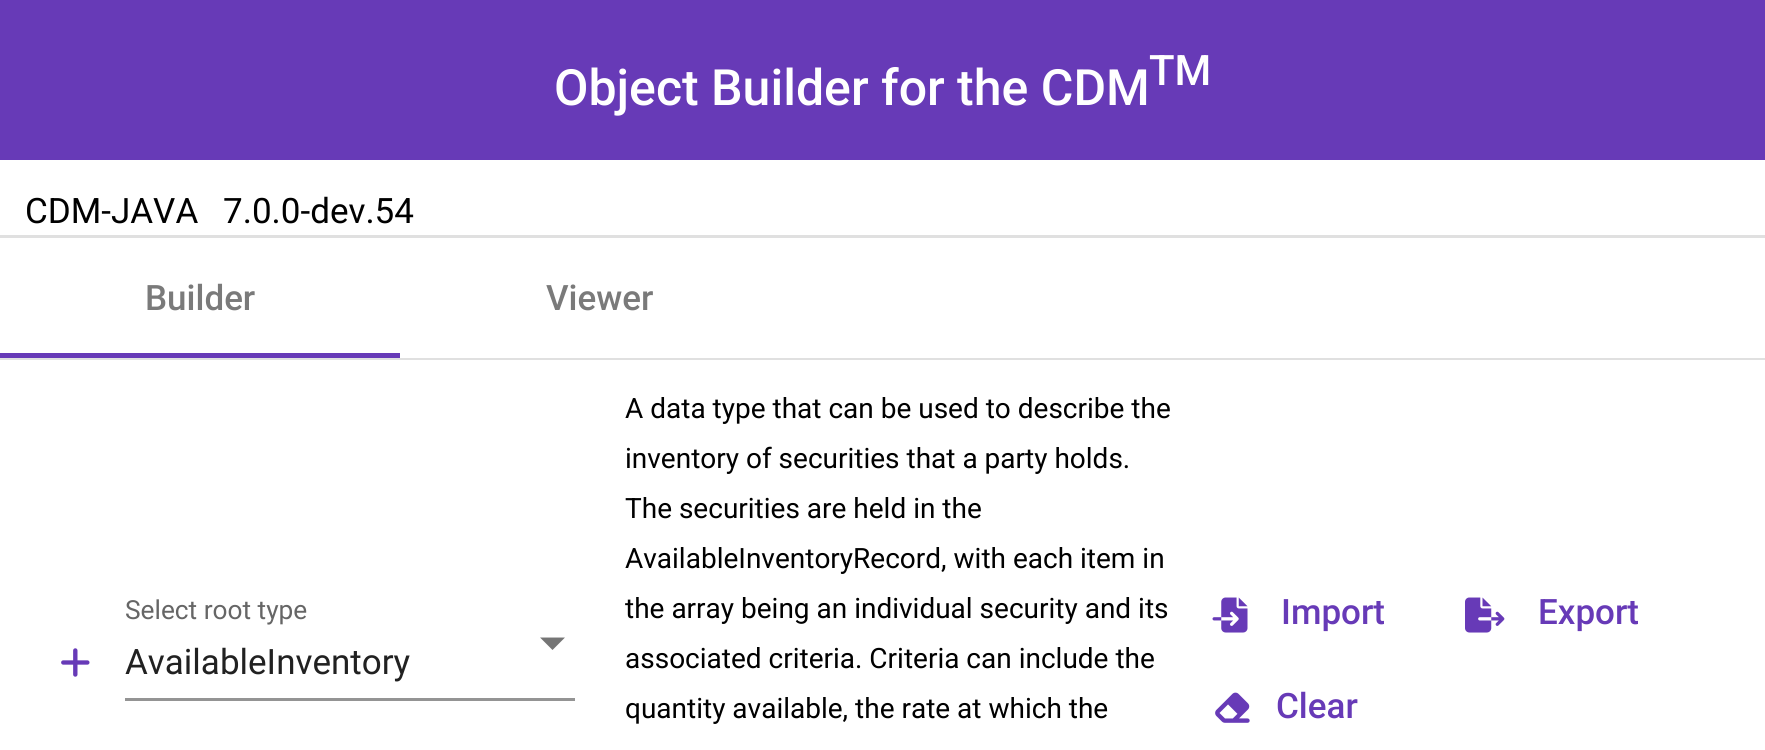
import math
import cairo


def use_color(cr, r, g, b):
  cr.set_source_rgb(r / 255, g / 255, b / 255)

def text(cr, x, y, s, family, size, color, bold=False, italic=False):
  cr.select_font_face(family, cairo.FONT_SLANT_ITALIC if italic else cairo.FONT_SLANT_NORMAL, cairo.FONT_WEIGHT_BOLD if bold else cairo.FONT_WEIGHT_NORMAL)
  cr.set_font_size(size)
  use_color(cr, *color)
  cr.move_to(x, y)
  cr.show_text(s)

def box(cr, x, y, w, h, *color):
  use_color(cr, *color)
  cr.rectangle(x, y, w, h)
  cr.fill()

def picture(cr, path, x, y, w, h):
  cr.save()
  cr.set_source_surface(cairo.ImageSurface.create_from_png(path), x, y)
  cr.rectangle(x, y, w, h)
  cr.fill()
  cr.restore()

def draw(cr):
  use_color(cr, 255, 255, 255)
  cr.paint()
  box(cr, 0, 0, 1765, 160, 103, 58, 183)
  box(cr, 0, 235, 1765, 3, 224, 224, 224)
  box(cr, 0, 358, 1765, 2, 224, 224, 224)
  box(cr, 0, 353, 400, 5, 103, 58, 183)
  picture(cr, "img_01.png", 61, 648, 29, 29)
  use_color(cr, 117, 117, 117)
  cr.new_path()
  cr.move_to(540, 637.5)
  cr.line_to(565, 637.5)
  cr.line_to(552.5, 650)
  cr.close_path()
  cr.fill()
  box(cr, 125, 698, 450, 3, 148, 148, 148)
  picture(cr, "img_02.png", 1212, 597, 36, 36)
  picture(cr, "img_03.png", 1465, 597, 40, 36)
  picture(cr, "img_04.png", 1215, 692, 35, 31)
  text(cr, 554, 105, "Object Builder for the CDM", "Roboto Medium", 50, (255, 255, 255))
  text(cr, 1149, 85, "TM", "Roboto Medium", 42, (255, 255, 255))
  text(cr, 25, 223, "CDM-JAVA", "Roboto", 35, (0, 0, 0))
  text(cr, 223, 223, "7.0.0-dev.54", "Roboto", 35, (0, 0, 0))
  text(cr, 145, 310, "Builder", "Roboto Medium", 35, (122, 122, 122))
  text(cr, 546, 310, "Viewer", "Roboto Medium", 35, (122, 122, 122))
  text(cr, 125, 619, "Select root type", "Roboto", 26.25, (102, 102, 102))
  text(cr, 125, 674, "AvailableInventory", "Roboto", 35, (33, 33, 33))
  text(cr, 625, 418, "A data type that can be used to describe the", "Roboto", 28, (0, 0, 0))
  text(cr, 625, 468, "inventory of securities that a party holds.", "Roboto", 28, (0, 0, 0))
  text(cr, 625, 518, "The securities are held in the", "Roboto", 28, (0, 0, 0))
  text(cr, 625, 568, "AvailableInventoryRecord, with each item in", "Roboto", 28, (0, 0, 0))
  text(cr, 625, 618, "the array being an individual security and its", "Roboto", 28, (0, 0, 0))
  text(cr, 625, 668, "associated criteria. Criteria can include the", "Roboto", 28, (0, 0, 0))
  text(cr, 625, 718, "quantity available, the rate at which the", "Roboto", 28, (0, 0, 0))
  text(cr, 1281, 624, "Import", "Roboto Medium", 35, (103, 58, 183))
  text(cr, 1538, 624, "Export", "Roboto Medium", 35, (103, 58, 183))
  text(cr, 1276, 718, "Clear", "Roboto Medium", 35, (103, 58, 183))


surface = cairo.ImageSurface(cairo.FORMAT_RGB24, 1765, 750)
cr = cairo.Context(surface)
options = cairo.FontOptions()
options.set_hint_metrics(cairo.HINT_METRICS_OFF)
options.set_hint_style(cairo.HINT_STYLE_NONE)
cr.set_font_options(options)
cr.set_miter_limit(4)
draw(cr)
surface.write_to_png("out.png")
